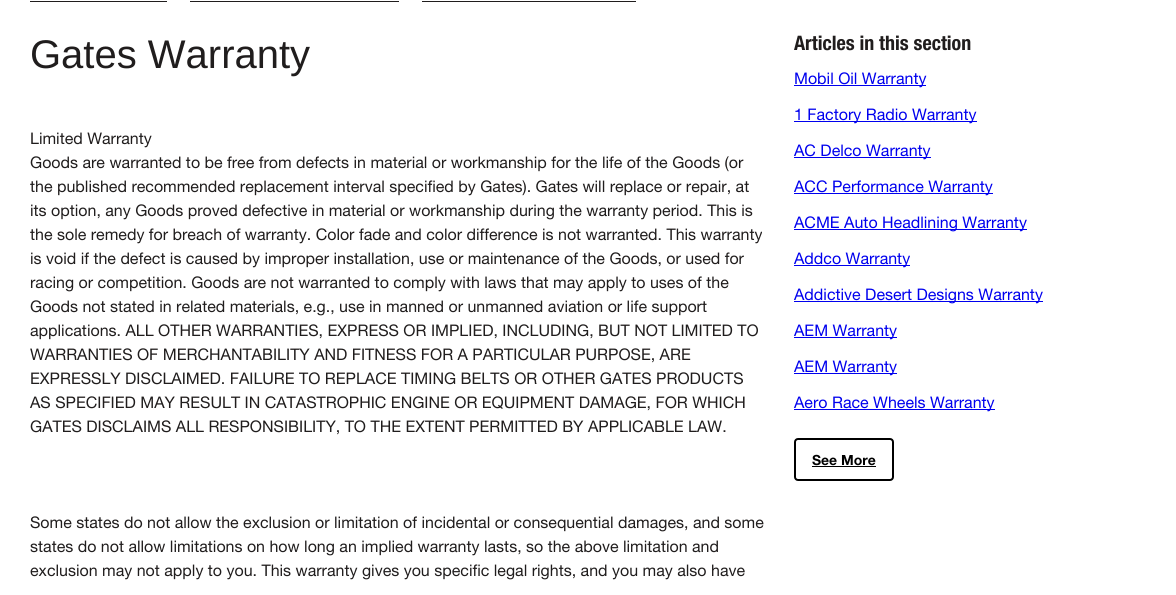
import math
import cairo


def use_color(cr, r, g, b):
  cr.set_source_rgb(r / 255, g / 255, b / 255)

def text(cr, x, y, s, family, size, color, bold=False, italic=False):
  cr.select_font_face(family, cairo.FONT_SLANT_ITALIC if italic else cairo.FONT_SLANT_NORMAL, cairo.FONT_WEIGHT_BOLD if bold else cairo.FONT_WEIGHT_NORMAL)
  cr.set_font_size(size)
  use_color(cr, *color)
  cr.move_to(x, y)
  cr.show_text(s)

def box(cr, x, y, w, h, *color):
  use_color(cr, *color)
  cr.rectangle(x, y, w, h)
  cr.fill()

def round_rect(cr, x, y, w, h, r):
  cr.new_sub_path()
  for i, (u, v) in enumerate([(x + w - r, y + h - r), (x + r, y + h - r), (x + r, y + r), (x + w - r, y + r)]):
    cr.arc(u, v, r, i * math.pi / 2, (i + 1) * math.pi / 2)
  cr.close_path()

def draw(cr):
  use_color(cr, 255, 255, 255)
  cr.paint()
  box(cr, 30, 1, 137, 1, 32, 29, 29)
  box(cr, 190, 1, 209, 1, 32, 29, 29)
  box(cr, 422, 1, 214, 1, 32, 29, 29)
  box(cr, 794, 85, 132, 1, 0, 0, 238)
  box(cr, 794, 121, 183, 1, 0, 0, 238)
  box(cr, 794, 157, 137, 1, 0, 0, 238)
  box(cr, 794, 193, 199, 1, 0, 0, 238)
  box(cr, 794, 229, 233, 1, 0, 0, 238)
  box(cr, 794, 265, 116, 1, 0, 0, 238)
  box(cr, 794, 301, 249, 1, 0, 0, 238)
  box(cr, 794, 337, 103, 1, 0, 0, 238)
  box(cr, 794, 373, 103, 1, 0, 0, 238)
  box(cr, 794, 409, 201, 1, 0, 0, 238)
  round_rect(cr, 795, 439, 98, 41, 3)
  use_color(cr, 0, 0, 0)
  cr.stroke()
  box(cr, 812, 466, 64, 1, 0, 0, 0)
  text(cr, 30, 68, "Gates Warranty", "Liberation Sans", 40, (32, 29, 29))
  text(cr, 30, 144, "Limited Warranty", "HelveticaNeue", 16, (32, 29, 29))
  text(cr, 30, 168, "Goods are warranted to be free from defects in material or workmanship for the life of the Goods (or", "HelveticaNeue", 16, (32, 29, 29))
  text(cr, 30, 192, "the published recommended replacement interval specified by Gates). Gates will replace or repair, at", "HelveticaNeue", 16, (32, 29, 29))
  text(cr, 30, 216, "its option, any Goods proved defective in material or workmanship during the warranty period. This is", "HelveticaNeue", 16, (32, 29, 29))
  text(cr, 30, 240, "the sole remedy for breach of warranty. Color fade and color difference is not warranted. This warranty", "HelveticaNeue", 16, (32, 29, 29))
  text(cr, 30, 264, "is void if the defect is caused by improper installation, use or maintenance of the Goods, or used for", "HelveticaNeue", 16, (32, 29, 29))
  text(cr, 30, 288, "racing or competition. Goods are not warranted to comply with laws that may apply to uses of the", "HelveticaNeue", 16, (32, 29, 29))
  text(cr, 30, 312, "Goods not stated in related materials, e.g., use in manned or unmanned aviation or life support", "HelveticaNeue", 16, (32, 29, 29))
  text(cr, 30, 336, "applications. ALL OTHER WARRANTIES, EXPRESS OR IMPLIED, INCLUDING, BUT NOT LIMITED TO", "HelveticaNeue", 16, (32, 29, 29))
  text(cr, 30, 360, "WARRANTIES OF MERCHANTABILITY AND FITNESS FOR A PARTICULAR PURPOSE, ARE", "HelveticaNeue", 16, (32, 29, 29))
  text(cr, 30, 384, "EXPRESSLY DISCLAIMED. FAILURE TO REPLACE TIMING BELTS OR OTHER GATES PRODUCTS", "HelveticaNeue", 16, (32, 29, 29))
  text(cr, 30, 408, "AS SPECIFIED MAY RESULT IN CATASTROPHIC ENGINE OR EQUIPMENT DAMAGE, FOR WHICH", "HelveticaNeue", 16, (32, 29, 29))
  text(cr, 30, 432, "GATES DISCLAIMS ALL RESPONSIBILITY, TO THE EXTENT PERMITTED BY APPLICABLE LAW.", "HelveticaNeue", 16, (32, 29, 29))
  text(cr, 30, 528, "Some states do not allow the exclusion or limitation of incidental or consequential damages, and some", "HelveticaNeue", 16, (32, 29, 29))
  text(cr, 30, 552, "states do not allow limitations on how long an implied warranty lasts, so the above limitation and", "HelveticaNeue", 16, (32, 29, 29))
  text(cr, 30, 576, "exclusion may not apply to you. This warranty gives you specific legal rights, and you may also have", "HelveticaNeue", 16, (32, 29, 29))
  text(cr, 794, 50, "Articles in this section", "Helvetica Neue", 20, (32, 29, 29), bold=True)
  text(cr, 794, 84, "Mobil Oil Warranty", "HelveticaNeue", 16, (0, 0, 238))
  text(cr, 794, 120, "1 Factory Radio Warranty", "HelveticaNeue", 16, (0, 0, 238))
  text(cr, 794, 156, "AC Delco Warranty", "HelveticaNeue", 16, (0, 0, 238))
  text(cr, 794, 192, "ACC Performance Warranty", "HelveticaNeue", 16, (0, 0, 238))
  text(cr, 794, 228, "ACME Auto Headlining Warranty", "HelveticaNeue", 16, (0, 0, 238))
  text(cr, 794, 264, "Addco Warranty", "HelveticaNeue", 16, (0, 0, 238))
  text(cr, 794, 300, "Addictive Desert Designs Warranty", "HelveticaNeue", 16, (0, 0, 238))
  text(cr, 794, 336, "AEM Warranty", "HelveticaNeue", 16, (0, 0, 238))
  text(cr, 794, 372, "AEM Warranty", "HelveticaNeue", 16, (0, 0, 238))
  text(cr, 794, 408, "Aero Race Wheels Warranty", "HelveticaNeue", 16, (0, 0, 238))
  text(cr, 812, 465, "See More", "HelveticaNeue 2", 14, (0, 0, 0), bold=True)


surface = cairo.ImageSurface(cairo.FORMAT_RGB24, 1176, 595)
cr = cairo.Context(surface)
options = cairo.FontOptions()
options.set_hint_metrics(cairo.HINT_METRICS_OFF)
options.set_hint_style(cairo.HINT_STYLE_NONE)
cr.set_font_options(options)
cr.set_miter_limit(4)
draw(cr)
surface.write_to_png("out.png")
